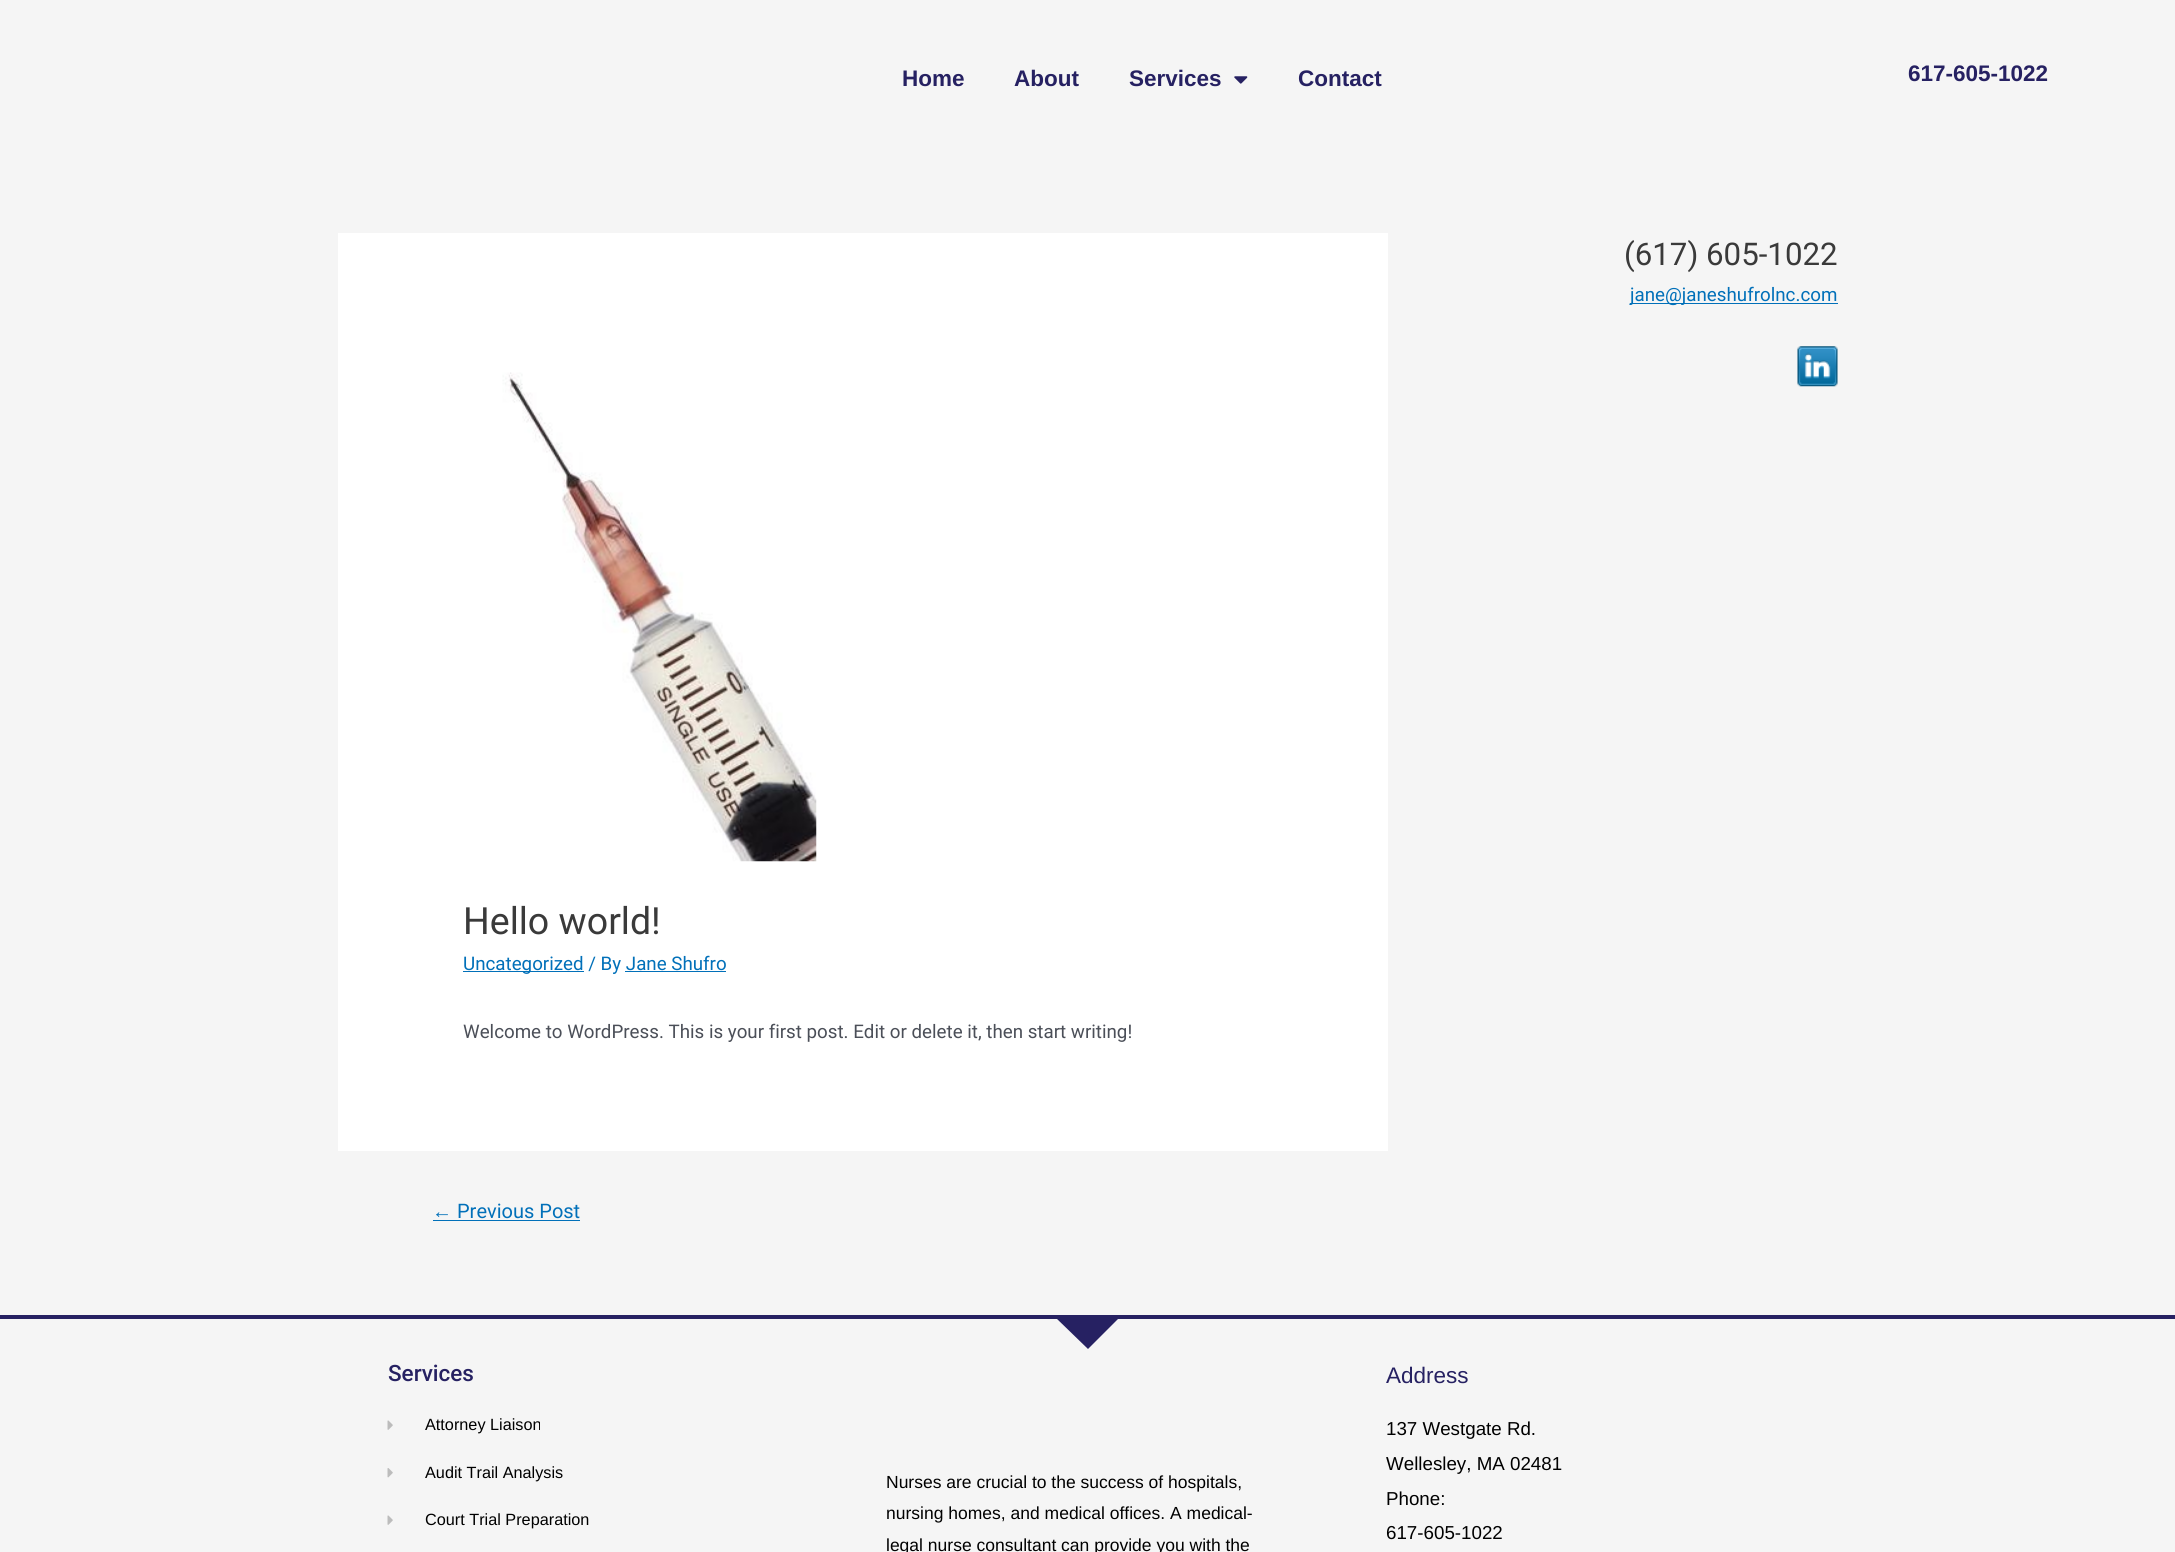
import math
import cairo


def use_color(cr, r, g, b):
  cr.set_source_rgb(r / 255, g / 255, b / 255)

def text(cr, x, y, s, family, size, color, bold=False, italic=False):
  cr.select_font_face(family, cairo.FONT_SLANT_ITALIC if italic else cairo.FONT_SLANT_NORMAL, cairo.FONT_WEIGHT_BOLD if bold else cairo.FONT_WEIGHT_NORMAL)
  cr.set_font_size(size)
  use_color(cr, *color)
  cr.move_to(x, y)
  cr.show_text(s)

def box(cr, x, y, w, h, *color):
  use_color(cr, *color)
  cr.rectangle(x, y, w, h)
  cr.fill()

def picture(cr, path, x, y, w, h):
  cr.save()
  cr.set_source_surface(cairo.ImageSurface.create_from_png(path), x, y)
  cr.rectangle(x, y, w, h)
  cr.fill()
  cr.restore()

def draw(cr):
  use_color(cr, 245, 245, 245)
  cr.paint()
  picture(cr, "img_01.png", 1234, 76, 14, 8)
  box(cr, 1630, 303, 208, 1, 1, 112, 185)
  picture(cr, "img_02.png", 1797, 346, 41, 41)
  box(cr, 338, 233, 1050, 918, 255, 255, 255)
  picture(cr, "img_03.png", 502, 372, 315, 490)
  box(cr, 463, 971, 121, 1, 1, 112, 185)
  box(cr, 625, 971, 101, 1, 1, 112, 185)
  box(cr, 433, 1220, 147, 1, 1, 112, 185)
  box(cr, 0, 1315, 2175, 4, 38, 33, 98)
  cr.new_path()
  cr.move_to(1088, 1349)
  cr.line_to(1056, 1318)
  cr.line_to(1119, 1318)
  cr.close_path()
  cr.fill()
  picture(cr, "img_04.png", 387, 1420, 6, 10)
  picture(cr, "img_05.png", 387, 1468, 6, 10)
  picture(cr, "img_04.png", 387, 1515, 6, 10)
  text(cr, 902, 86, "Home", "Liberation Sans", 22.5, (38, 33, 98), bold=True)
  text(cr, 1014, 86, "About", "Liberation Sans", 22.5, (38, 33, 98), bold=True)
  text(cr, 1129, 86, "Services", "Liberation Sans", 22.5, (38, 33, 98), bold=True)
  text(cr, 1298, 86, "Contact", "Liberation Sans", 22.5, (38, 33, 98), bold=True)
  text(cr, 1908, 81, "617-605-1022", "Liberation Sans", 22.5, (38, 33, 98), bold=True)
  text(cr, 1624, 265, "(617) 605-1022", "Roboto", 31.25, (58, 58, 58))
  text(cr, 1630, 301, "jane@janeshufrolnc.com", "Roboto", 18.75, (1, 112, 185))
  text(cr, 463, 934, "Hello world!", "Roboto", 37.5, (58, 58, 58))
  text(cr, 463, 970, "Uncategorized / By Jane Shufro", "Roboto", 18.75, (1, 112, 185))
  text(cr, 463, 1038, "Welcome to WordPress. This is your first post. Edit or delete it, then start writing!", "Roboto", 18.75, (75, 79, 88))
  text(cr, 432, 1218, "←", "Liberation Sans", 20, (1, 112, 185))
  text(cr, 457, 1218, "Previous Post", "Roboto", 20, (1, 112, 185))
  text(cr, 388, 1381, "Services", "Roboto Medium", 22.5, (38, 33, 98))
  text(cr, 425, 1430, "Attorney Liaison", "Liberation Sans", 16.25, (0, 0, 0))
  text(cr, 425, 1478, "Audit Trail Analysis", "Liberation Sans", 16.25, (0, 0, 0))
  text(cr, 425, 1525, "Court Trial Preparation", "Liberation Sans", 16.25, (0, 0, 0))
  text(cr, 886, 1488, "Nurses are crucial to the success of hospitals,", "Liberation Sans", 17.5, (0, 0, 0))
  text(cr, 886, 1519, "nursing homes, and medical offices. A medical-", "Liberation Sans", 17.5, (0, 0, 0))
  text(cr, 886, 1551, "legal nurse consultant can provide you with the", "Liberation Sans", 17.5, (0, 0, 0))
  text(cr, 1386, 1383, "Address", "Liberation Sans", 22.5, (38, 33, 98))
  text(cr, 1386, 1435, "137 Westgate Rd.", "Liberation Sans", 18.75, (0, 0, 0))
  text(cr, 1386, 1470, "Wellesley, MA 02481", "Liberation Sans", 18.75, (0, 0, 0))
  text(cr, 1386, 1505, "Phone:", "Liberation Sans", 18.75, (0, 0, 0))
  text(cr, 1386, 1539, "617-605-1022", "Liberation Sans", 18.75, (0, 0, 0))


surface = cairo.ImageSurface(cairo.FORMAT_RGB24, 2175, 1552)
cr = cairo.Context(surface)
options = cairo.FontOptions()
options.set_hint_metrics(cairo.HINT_METRICS_OFF)
options.set_hint_style(cairo.HINT_STYLE_NONE)
cr.set_font_options(options)
cr.set_miter_limit(4)
draw(cr)
surface.write_to_png("out.png")
